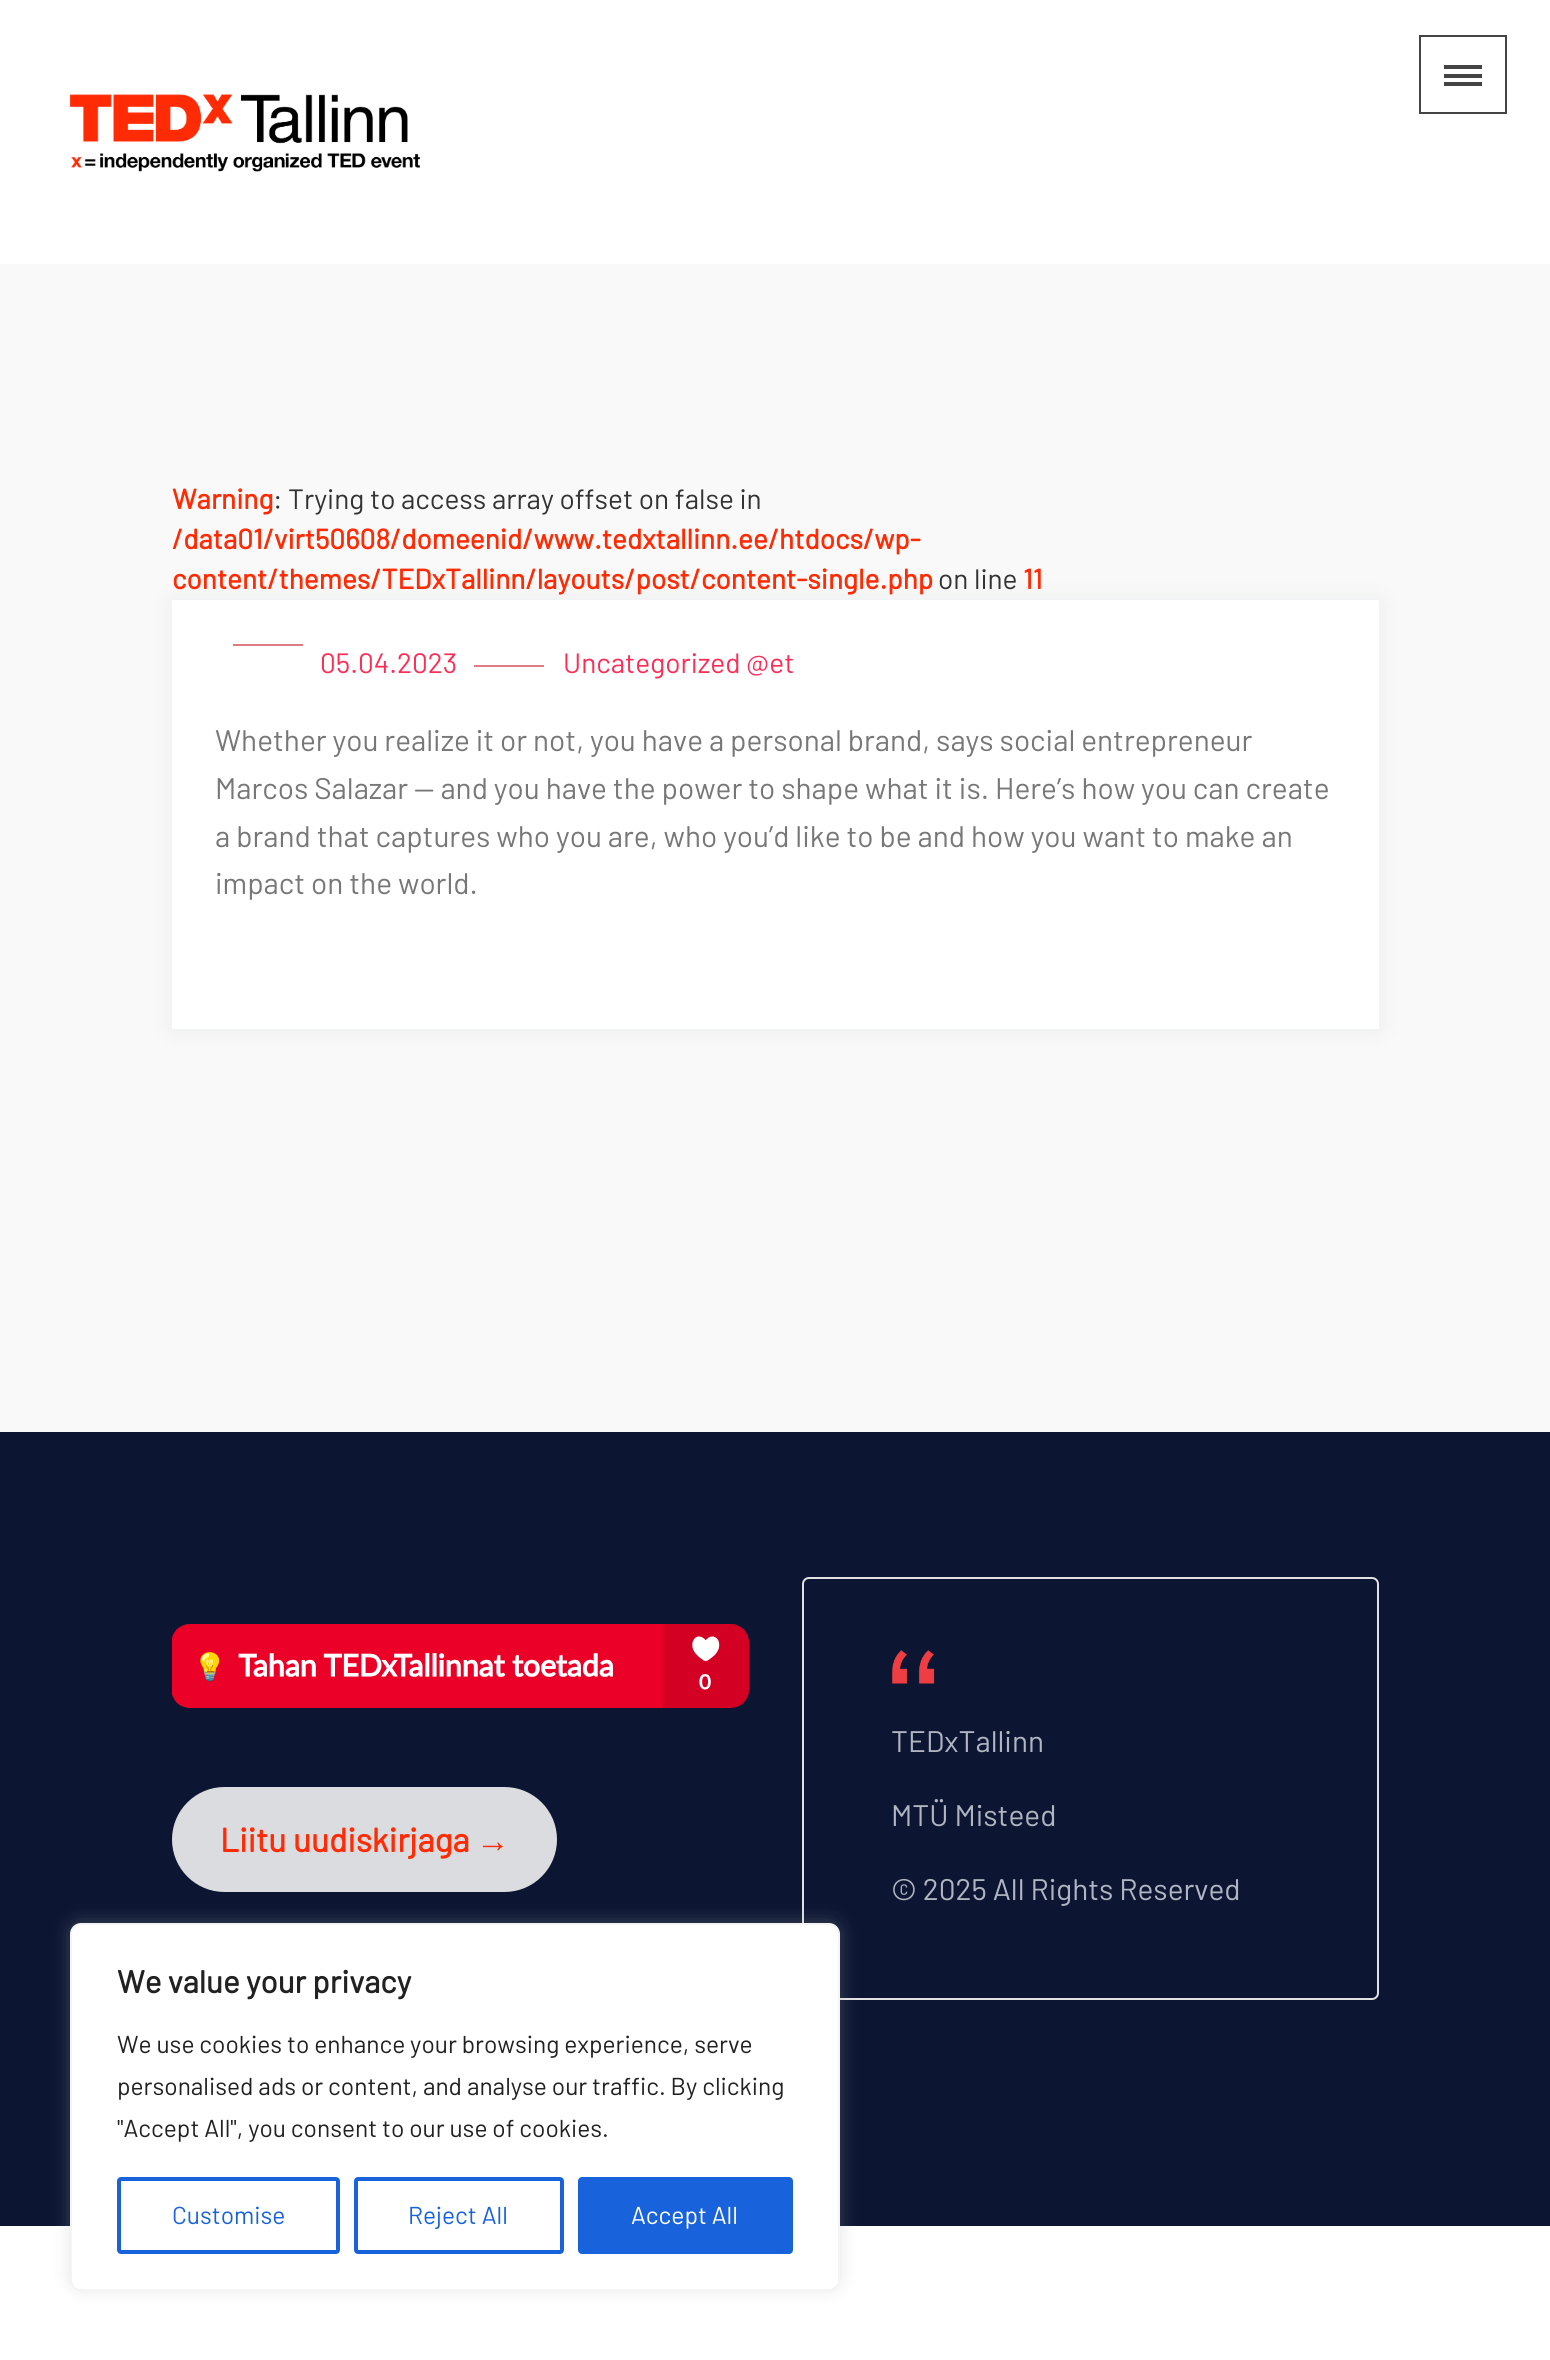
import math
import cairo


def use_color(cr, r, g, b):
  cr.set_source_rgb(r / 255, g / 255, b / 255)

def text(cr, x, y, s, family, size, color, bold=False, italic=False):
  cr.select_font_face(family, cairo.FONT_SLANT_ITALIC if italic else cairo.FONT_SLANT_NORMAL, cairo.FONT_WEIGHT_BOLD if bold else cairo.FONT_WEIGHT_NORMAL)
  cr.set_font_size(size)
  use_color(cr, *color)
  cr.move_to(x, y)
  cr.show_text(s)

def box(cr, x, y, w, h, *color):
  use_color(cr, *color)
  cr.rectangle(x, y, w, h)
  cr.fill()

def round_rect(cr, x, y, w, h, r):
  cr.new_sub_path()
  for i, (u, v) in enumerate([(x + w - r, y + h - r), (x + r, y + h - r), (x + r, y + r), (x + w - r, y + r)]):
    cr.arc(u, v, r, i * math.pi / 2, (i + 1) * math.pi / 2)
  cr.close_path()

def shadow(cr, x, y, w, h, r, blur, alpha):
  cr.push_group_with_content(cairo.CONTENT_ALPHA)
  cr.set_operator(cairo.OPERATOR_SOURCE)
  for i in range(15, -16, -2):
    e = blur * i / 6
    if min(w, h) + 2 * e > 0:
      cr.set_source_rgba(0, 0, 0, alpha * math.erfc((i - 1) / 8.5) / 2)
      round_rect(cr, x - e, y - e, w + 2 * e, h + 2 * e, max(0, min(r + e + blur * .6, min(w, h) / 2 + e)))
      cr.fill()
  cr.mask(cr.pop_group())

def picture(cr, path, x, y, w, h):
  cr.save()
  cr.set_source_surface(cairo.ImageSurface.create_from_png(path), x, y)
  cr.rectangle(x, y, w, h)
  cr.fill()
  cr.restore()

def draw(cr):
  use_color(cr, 255, 255, 255)
  cr.paint()
  cr.rectangle(1420, 36, 86, 77)
  use_color(cr, 68, 68, 68)
  cr.stroke()
  box(cr, 1444, 65, 38, 4, 68, 68, 68)
  box(cr, 1444, 74, 38, 4, 68, 68, 68)
  box(cr, 1444, 82, 38, 4, 68, 68, 68)
  picture(cr, "img_01.png", 70, 94, 350, 78)
  box(cr, 0, 264, 1550, 1168, 249, 249, 249)
  use_color(cr, 40, 61, 88)
  shadow(cr, 172, 600, 1207, 429, 0, 13, 0.07)
  box(cr, 172, 600, 1207, 429, 255, 255, 255)
  box(cr, 233, 644, 70, 2, 222, 123, 133)
  box(cr, 474, 665, 70, 2, 222, 123, 133)
  box(cr, 0, 1432, 1550, 794, 12, 22, 51)
  picture(cr, "img_02.png", 172, 1624, 577, 84)
  use_color(cr, 219, 220, 224)
  round_rect(cr, 172, 1787, 385, 105, 52.5)
  cr.fill()
  round_rect(cr, 803, 1578, 575, 421, 6)
  use_color(cr, 225, 225, 225)
  cr.stroke()
  picture(cr, "img_03.png", 892, 1650, 43, 34)
  use_color(cr, 172, 171, 171)
  shadow(cr, 70, 1922, 770, 367, 11, 9, 0.3)
  use_color(cr, 255, 255, 255)
  round_rect(cr, 71, 1924, 768, 366, 10)
  cr.fill_preserve()
  use_color(cr, 244, 244, 244)
  cr.stroke()
  round_rect(cr, 119, 2179, 219, 73, 2)
  use_color(cr, 24, 99, 220)
  cr.set_line_width(4)
  cr.stroke()
  round_rect(cr, 356, 2179, 206, 73, 2)
  cr.stroke()
  round_rect(cr, 580, 2179, 211, 73, 2)
  cr.fill_preserve()
  cr.stroke()
  text(cr, 172, 509, "Warning", "Barlow", 28, (255, 43, 4), bold=True)
  text(cr, 273, 509, ": Trying to access array offset on false in", "Barlow", 28, (51, 51, 51))
  text(cr, 172, 549, "/data01/virt50608/domeenid/www.tedxtallinn.ee/htdocs/wp-", "Barlow", 28, (255, 43, 4), bold=True)
  text(cr, 172, 589, "content/themes/TEDxTallinn/layouts/post/content-single.php", "Barlow", 28, (255, 43, 4), bold=True)
  text(cr, 938, 589, "on line", "Barlow", 28, (51, 51, 51))
  text(cr, 1023, 589, "11", "Barlow", 28, (255, 43, 4), bold=True)
  text(cr, 320, 673, "05.04.2023", "Barlow", 28, (253, 45, 86))
  text(cr, 563, 673, "Uncategorized @et", "Barlow", 28, (253, 45, 86))
  text(cr, 215, 751, "Whether you realize it or not, you have a personal brand, says social entrepreneur", "Barlow", 29.75, (119, 119, 119))
  text(cr, 215, 799, "Marcos Salazar — and you have the power to shape what it is. Here’s how you can create", "Barlow", 29.75, (119, 119, 119))
  text(cr, 215, 847, "a brand that captures who you are, who you’d like to be and how you want to make an", "Barlow", 29.75, (119, 119, 119))
  text(cr, 215, 894, "impact on the world.", "Barlow", 29.75, (119, 119, 119))
  text(cr, 220, 1852, "Liitu uudiskirjaga", "Barlow", 33.5, (255, 43, 4), bold=True)
  text(cr, 476, 1852, "→", "Liberation Sans", 33.5, (255, 43, 4), bold=True)
  text(cr, 891, 1752, "TEDxTallinn", "Barlow", 29.75, (176, 181, 194))
  text(cr, 891, 1826, "MTÜ Misteed", "Barlow", 29.75, (176, 181, 194))
  text(cr, 891, 1900, "© 2025 All Rights Reserved", "Barlow", 29.75, (176, 181, 194))
  text(cr, 117, 1993, "We value your privacy", "Barlow", 31.5, (33, 33, 33), bold=True)
  text(cr, 117, 2053, "We use cookies to enhance your browsing experience, serve", "Barlow", 24.5, (33, 33, 33))
  text(cr, 117, 2095, "personalised ads or content, and analyse our traffic. By clicking", "Barlow", 24.5, (33, 33, 33))
  text(cr, 117, 2137, "\"Accept All\", you consent to our use of cookies.", "Barlow", 24.5, (33, 33, 33))
  text(cr, 172, 2224, "Customise", "Barlow", 24.5, (24, 99, 220))
  text(cr, 408, 2224, "Reject All", "Barlow", 24.5, (24, 99, 220))
  text(cr, 631, 2224, "Accept All", "Barlow", 24.5, (255, 255, 255))


surface = cairo.ImageSurface(cairo.FORMAT_RGB24, 1550, 2360)
cr = cairo.Context(surface)
options = cairo.FontOptions()
options.set_hint_metrics(cairo.HINT_METRICS_OFF)
options.set_hint_style(cairo.HINT_STYLE_NONE)
cr.set_font_options(options)
cr.set_miter_limit(4)
draw(cr)
surface.write_to_png("out.png")
